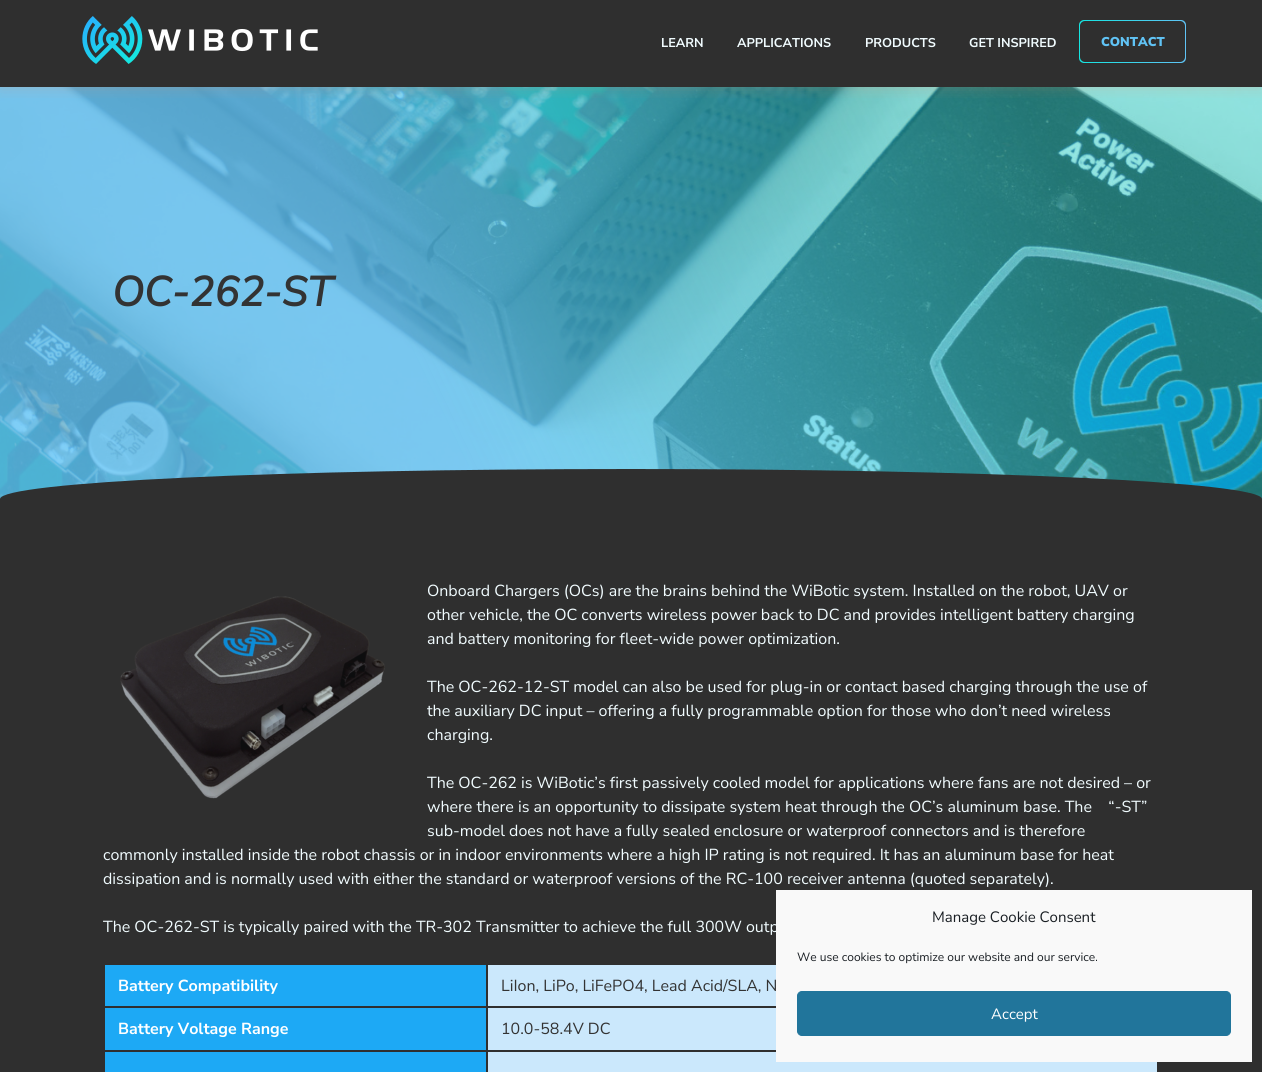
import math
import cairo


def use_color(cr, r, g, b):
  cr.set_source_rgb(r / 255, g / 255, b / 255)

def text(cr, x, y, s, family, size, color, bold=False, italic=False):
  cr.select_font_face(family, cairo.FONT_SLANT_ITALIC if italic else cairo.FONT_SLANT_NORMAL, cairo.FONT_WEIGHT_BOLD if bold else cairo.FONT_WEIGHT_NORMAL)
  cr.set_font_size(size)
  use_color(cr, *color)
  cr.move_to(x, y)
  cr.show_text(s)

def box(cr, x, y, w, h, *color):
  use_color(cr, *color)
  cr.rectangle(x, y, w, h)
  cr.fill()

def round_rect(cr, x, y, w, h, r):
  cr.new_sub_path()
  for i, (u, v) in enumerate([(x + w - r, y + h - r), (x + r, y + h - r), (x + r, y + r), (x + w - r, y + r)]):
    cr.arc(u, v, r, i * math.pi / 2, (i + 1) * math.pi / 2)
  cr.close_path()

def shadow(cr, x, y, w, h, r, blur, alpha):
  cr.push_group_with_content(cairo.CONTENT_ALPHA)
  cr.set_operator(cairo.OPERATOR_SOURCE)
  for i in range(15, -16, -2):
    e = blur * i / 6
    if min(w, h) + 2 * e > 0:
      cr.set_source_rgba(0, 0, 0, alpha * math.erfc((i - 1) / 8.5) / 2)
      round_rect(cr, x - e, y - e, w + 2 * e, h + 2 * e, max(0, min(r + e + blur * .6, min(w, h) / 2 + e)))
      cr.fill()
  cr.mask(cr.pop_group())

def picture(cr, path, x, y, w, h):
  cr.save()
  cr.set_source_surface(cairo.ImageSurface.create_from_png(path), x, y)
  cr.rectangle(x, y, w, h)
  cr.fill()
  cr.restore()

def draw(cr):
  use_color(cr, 47, 47, 47)
  cr.paint()
  picture(cr, "img_02.png", 0, 87, 1262, 412)
  cr.save()
  cr.rectangle(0, 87, 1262, 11)
  cr.clip()
  use_color(cr, 252, 130, 74)
  shadow(cr, 0, 0, 1262, 87, 0, 8, 0.23)
  cr.restore()
  picture(cr, "img_01.png", 82, 16, 236, 48)
  gradient = cairo.LinearGradient(1079, 42, 1186, 42)
  gradient.add_color_stop_rgba(0, 0.086, 0.898, 0.882, 1)
  gradient.add_color_stop_rgba(1, 0.376, 0.765, 0.961, 1)
  cr.set_source(gradient)
  round_rect(cr, 1079, 20, 107, 43, 5)
  cr.fill()
  use_color(cr, 47, 47, 47)
  round_rect(cr, 1080, 21, 105, 41, 5)
  cr.fill()
  cr.save()
  cr.rectangle(0, 87, 1262, 412)
  cr.clip()
  cr.new_path()
  cr.move_to(631, 469)
  cr.curve_to(979, 469, 1262, 482, 1262, 499)
  cr.line_to(1262, 529)
  cr.line_to(0, 529)
  cr.line_to(0, 499)
  cr.curve_to(0, 482, 283, 469, 631, 469)
  cr.close_path()
  cr.fill()
  cr.restore()
  picture(cr, "img_03.png", 120, 596, 265, 203)
  box(cr, 105, 965, 381, 41, 29, 169, 245)
  box(cr, 488, 965, 288, 41, 203, 232, 252)
  box(cr, 105, 1008, 381, 42, 29, 169, 245)
  box(cr, 488, 1008, 288, 42, 203, 232, 252)
  box(cr, 105, 1052, 381, 20, 29, 169, 245)
  box(cr, 488, 1052, 669, 20, 203, 232, 252)
  text(cr, 661, 47, "LEARN", "Nunito Sans", 12.75, (241, 252, 255), bold=True)
  text(cr, 737, 47, "APPLICATIONS", "Nunito Sans", 12.75, (241, 252, 255), bold=True)
  text(cr, 865, 47, "PRODUCTS", "Nunito Sans", 12.75, (241, 252, 255), bold=True)
  text(cr, 969, 47, "GET INSPIRED", "Nunito Sans", 12.75, (241, 252, 255), bold=True)
  text(cr, 1101, 46, "CONTACT", "Nunito Sans Black", 12.75, (96, 195, 245))
  text(cr, 112, 306, "OC-262-ST", "Nunito Sans", 41.5, (51, 51, 51), bold=True, italic=True)
  text(cr, 427, 596, "Onboard Chargers (OCs) are the brains behind the WiBotic system. Installed on the robot, UAV or", "Nunito Sans", 16, (241, 252, 255))
  text(cr, 427, 620, "other vehicle, the OC converts wireless power back to DC and provides intelligent battery charging", "Nunito Sans", 16, (241, 252, 255))
  text(cr, 427, 644, "and battery monitoring for fleet-wide power optimization.", "Nunito Sans", 16, (241, 252, 255))
  text(cr, 427, 692, "The OC-262-12-ST model can also be used for plug-in or contact based charging through the use of", "Nunito Sans", 16, (241, 252, 255))
  text(cr, 427, 716, "the auxiliary DC input – offering a fully programmable option for those who don’t need wireless", "Nunito Sans", 16, (241, 252, 255))
  text(cr, 427, 740, "charging.", "Nunito Sans", 16, (241, 252, 255))
  text(cr, 427, 788, "The OC-262 is WiBotic’s first passively cooled model for applications where fans are not desired – or", "Nunito Sans", 16, (241, 252, 255))
  text(cr, 427, 812, "where there is an opportunity to dissipate system heat through the OC’s aluminum base. The    “-ST”", "Nunito Sans", 16, (241, 252, 255))
  text(cr, 427, 836, "sub-model does not have a fully sealed enclosure or waterproof connectors and is therefore", "Nunito Sans", 16, (241, 252, 255))
  text(cr, 103, 860, "commonly installed inside the robot chassis or in indoor environments where a high IP rating is not required. It has an aluminum base for heat", "Nunito Sans", 16, (241, 252, 255))
  text(cr, 103, 884, "dissipation and is normally used with either the standard or waterproof versions of the RC-100 receiver antenna (quoted separately).", "Nunito Sans", 16, (241, 252, 255))
  text(cr, 103, 932, "The OC-262-ST is typically paired with the TR-302 Transmitter to achieve the full 300W outp", "Nunito Sans", 16, (241, 252, 255))
  text(cr, 118, 991, "Battery Compatibility", "Nunito Sans", 16, (255, 255, 255), bold=True)
  text(cr, 501, 991, "LiIon, LiPo, LiFePO4, Lead Acid/SLA, N", "Nunito Sans", 16, (51, 51, 51))
  text(cr, 118, 1034, "Battery Voltage Range", "Nunito Sans", 16, (255, 255, 255), bold=True)
  text(cr, 501, 1034, "10.0-58.4V DC", "Nunito Sans", 16, (51, 51, 51))
  box(cr, 776, 890, 476, 172, 249, 249, 249)
  text(cr, 932, 922, "Manage Cookie Consent", "Nunito Sans", 15, (25, 30, 35))
  text(cr, 797, 961, "We use cookies to optimize our website and our service.", "Nunito Sans", 12, (25, 30, 35))
  use_color(cr, 33, 117, 155)
  round_rect(cr, 797.5, 991.5, 433, 44, 4.5)
  cr.fill_preserve()
  cr.set_line_width(1)
  cr.stroke()
  text(cr, 991, 1019, "Accept", "Nunito Sans", 15, (255, 255, 255))


surface = cairo.ImageSurface(cairo.FORMAT_RGB24, 1262, 1072)
cr = cairo.Context(surface)
options = cairo.FontOptions()
options.set_hint_metrics(cairo.HINT_METRICS_OFF)
options.set_hint_style(cairo.HINT_STYLE_NONE)
cr.set_font_options(options)
cr.set_miter_limit(4)
draw(cr)
surface.write_to_png("out.png")
